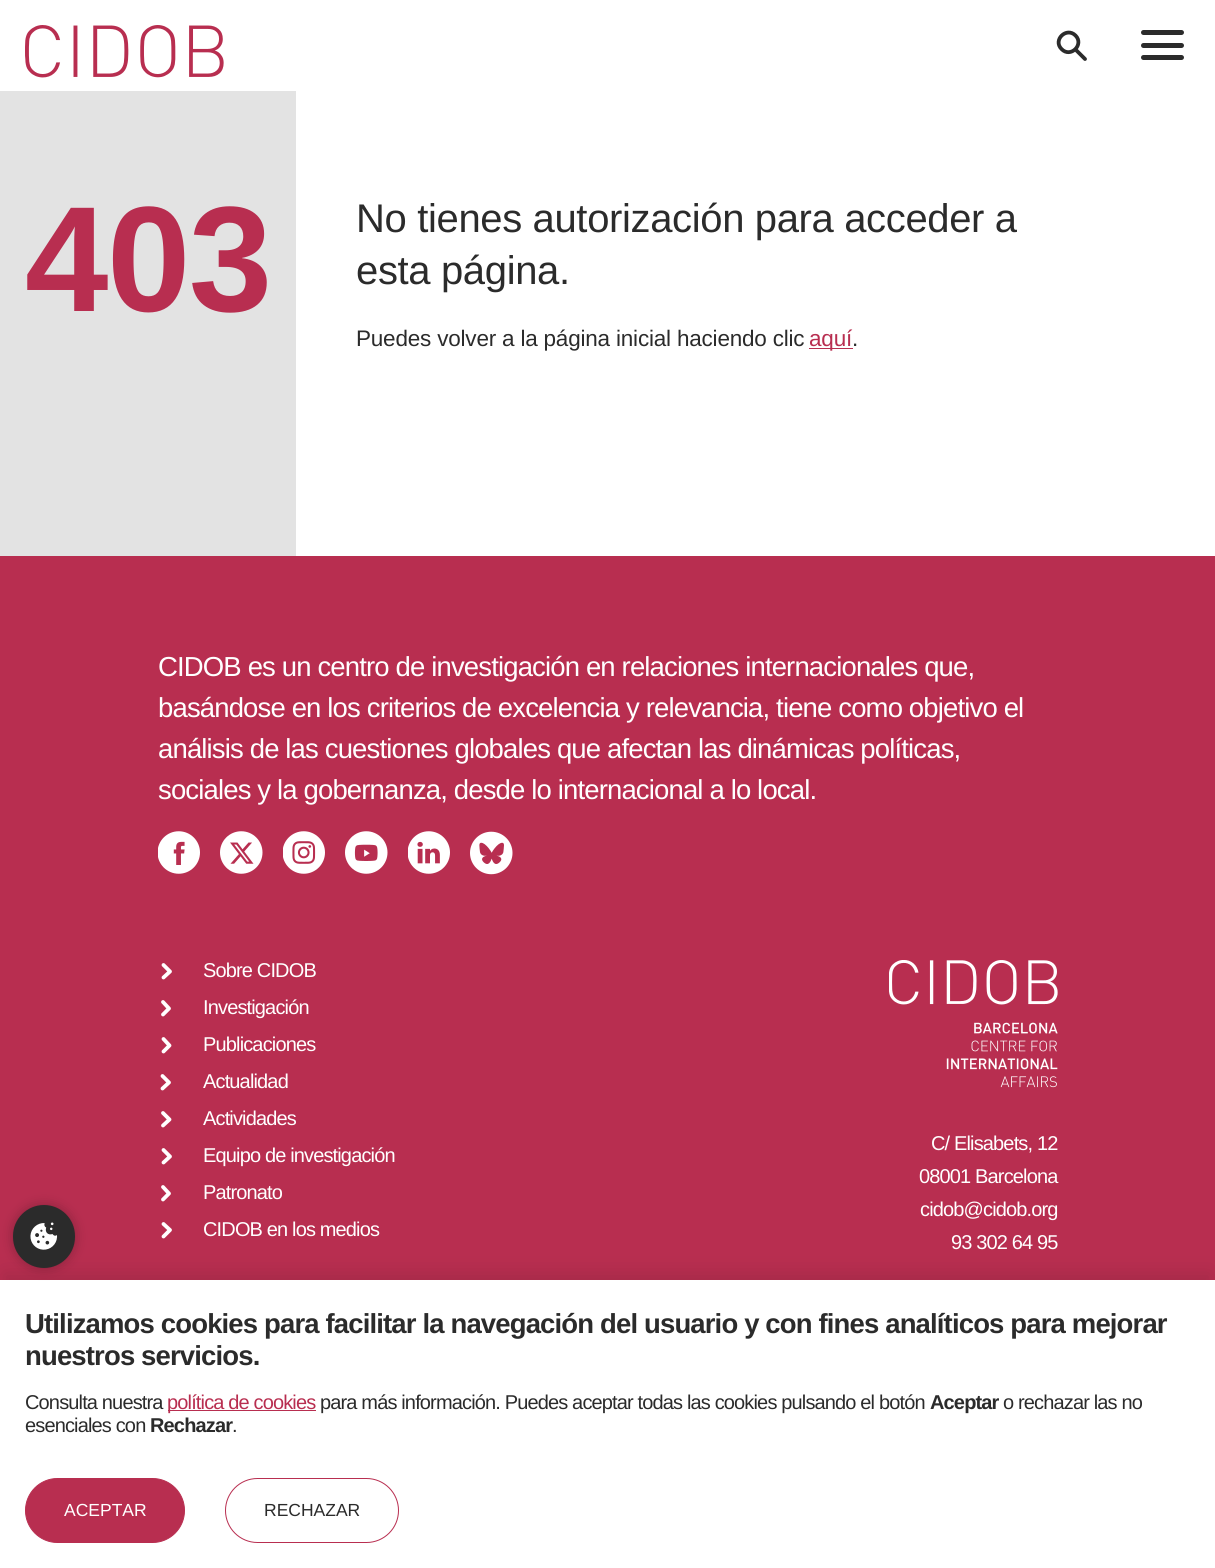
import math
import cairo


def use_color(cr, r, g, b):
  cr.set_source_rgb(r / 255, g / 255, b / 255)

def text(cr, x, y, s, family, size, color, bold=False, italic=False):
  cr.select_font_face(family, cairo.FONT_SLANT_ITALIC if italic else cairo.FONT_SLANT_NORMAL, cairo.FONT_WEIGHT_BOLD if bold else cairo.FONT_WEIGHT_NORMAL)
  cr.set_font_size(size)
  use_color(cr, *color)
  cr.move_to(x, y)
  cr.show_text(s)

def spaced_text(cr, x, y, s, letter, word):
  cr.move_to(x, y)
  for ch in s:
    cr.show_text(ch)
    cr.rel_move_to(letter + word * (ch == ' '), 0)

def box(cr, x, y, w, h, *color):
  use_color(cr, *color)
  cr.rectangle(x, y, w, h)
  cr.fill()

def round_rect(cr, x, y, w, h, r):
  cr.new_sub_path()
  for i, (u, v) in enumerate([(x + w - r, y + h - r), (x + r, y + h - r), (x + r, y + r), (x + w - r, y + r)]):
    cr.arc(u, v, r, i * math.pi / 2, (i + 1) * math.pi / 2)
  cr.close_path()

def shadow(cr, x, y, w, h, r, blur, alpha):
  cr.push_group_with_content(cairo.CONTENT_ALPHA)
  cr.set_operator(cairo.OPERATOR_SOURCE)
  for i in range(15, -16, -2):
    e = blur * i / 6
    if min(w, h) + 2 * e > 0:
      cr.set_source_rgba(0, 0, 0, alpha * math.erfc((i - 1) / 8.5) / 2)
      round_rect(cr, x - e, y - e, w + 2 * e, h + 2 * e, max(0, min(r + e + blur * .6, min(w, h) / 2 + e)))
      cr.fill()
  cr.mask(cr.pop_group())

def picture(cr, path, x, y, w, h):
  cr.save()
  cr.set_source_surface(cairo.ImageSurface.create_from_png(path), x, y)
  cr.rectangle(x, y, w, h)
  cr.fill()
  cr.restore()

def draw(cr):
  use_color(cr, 255, 255, 255)
  cr.paint()
  picture(cr, "img_01.png", 25, 25, 199, 53)
  cr.new_path()
  cr.move_to(1075.5, 35.5)
  cr.curve_to(1084.5, 44.5, 1070.5, 58.5, 1061.5, 49)
  cr.curve_to(1052.5, 40, 1066.5, 26.5, 1075.5, 35.5)
  cr.move_to(1075.5, 49.5)
  cr.line_to(1085, 59)
  use_color(cr, 43, 43, 43)
  cr.set_line_width(3.8)
  cr.set_line_cap(cairo.LINE_CAP_ROUND)
  cr.set_line_join(cairo.LINE_JOIN_ROUND)
  cr.stroke()
  round_rect(cr, 1141, 30, 43, 5, 2.5)
  cr.fill()
  round_rect(cr, 1141, 43, 43, 5, 2.5)
  cr.fill()
  round_rect(cr, 1141, 55, 43, 5, 2.5)
  cr.fill()
  box(cr, 0, 91, 296, 465, 227, 227, 227)
  box(cr, 809, 348, 44, 1, 184, 46, 80)
  box(cr, 0, 556, 1215, 724, 184, 46, 80)
  picture(cr, "img_02.png", 158, 831, 42, 43)
  picture(cr, "img_03.png", 220, 831, 43, 43)
  picture(cr, "img_04.png", 283, 831, 42, 43)
  picture(cr, "img_05.png", 345, 831, 43, 43)
  picture(cr, "img_06.png", 408, 831, 42, 43)
  picture(cr, "img_07.png", 470, 831, 43, 44)
  cr.save()
  cr.new_path()
  cr.move_to(160.5, 980)
  cr.line_to(160.5, 962.5)
  cr.line_to(172, 962.5)
  cr.line_to(172, 980)
  cr.close_path()
  cr.clip()
  cr.new_path()
  cr.move_to(163.5, 965)
  cr.line_to(170, 971.5)
  cr.line_to(163.5, 977.5)
  use_color(cr, 255, 255, 255)
  cr.stroke()
  cr.restore()
  cr.new_path()
  cr.move_to(163, 1002)
  cr.line_to(169, 1008.5)
  cr.line_to(163, 1014.5)
  cr.move_to(163.5, 1039)
  cr.line_to(169.5, 1045.5)
  cr.line_to(163.5, 1051.5)
  use_color(cr, 255, 255, 255)
  cr.stroke()
  cr.save()
  cr.new_path()
  cr.move_to(160.5, 1091)
  cr.line_to(160.5, 1073.5)
  cr.line_to(172, 1073.5)
  cr.line_to(172, 1091)
  cr.close_path()
  cr.clip()
  cr.new_path()
  cr.move_to(162.5, 1076)
  cr.line_to(169, 1082.5)
  cr.line_to(162.5, 1088.5)
  cr.stroke()
  cr.restore()
  cr.new_path()
  cr.move_to(163, 1113)
  cr.line_to(169.5, 1119.5)
  cr.line_to(163, 1125.5)
  cr.stroke()
  cr.save()
  cr.new_path()
  cr.move_to(160.5, 1165)
  cr.line_to(160.5, 1147.5)
  cr.line_to(172, 1147.5)
  cr.line_to(172, 1165)
  cr.close_path()
  cr.clip()
  cr.new_path()
  cr.move_to(163.5, 1150)
  cr.line_to(170, 1156.5)
  cr.line_to(163.5, 1162.5)
  cr.stroke()
  cr.restore()
  cr.new_path()
  cr.move_to(163, 1187)
  cr.line_to(169, 1193.5)
  cr.line_to(163, 1199.5)
  cr.move_to(163.5, 1224)
  cr.line_to(170, 1230)
  cr.line_to(163.5, 1236.5)
  cr.stroke()
  picture(cr, "img_08.png", 889, 960, 169, 128)
  use_color(cr, 0, 0, 0)
  shadow(cr, 4, 1273, 1207, 283, 0, 9.5, 0.1)
  box(cr, 0, 1280, 1215, 288, 255, 255, 255)
  use_color(cr, 0, 0, 0)
  shadow(cr, 13, 1205, 62, 63, 31, 6, 0.25)
  use_color(cr, 43, 43, 43)
  round_rect(cr, 13, 1205, 62, 63, 31)
  cr.fill()
  picture(cr, "img_09.png", 30, 1222, 28, 28)
  box(cr, 168, 1410, 148, 1, 184, 46, 80)
  round_rect(cr, 25.5, 1478.5, 159, 64, 32)
  cr.fill_preserve()
  cr.set_line_width(1)
  cr.set_line_cap(cairo.LINE_CAP_BUTT)
  cr.set_line_join(cairo.LINE_JOIN_MITER)
  cr.stroke()
  round_rect(cr, 225.5, 1478.5, 173, 64, 32)
  cr.stroke()
  cr.select_font_face("Liberation Sans", cairo.FONT_SLANT_NORMAL, cairo.FONT_WEIGHT_BOLD)
  cr.set_font_size(150)
  spaced_text(cr, 25, 311, "403", -1.5, 0)
  cr.select_font_face("Liberation Sans")
  cr.set_font_size(40)
  use_color(cr, 43, 43, 43)
  spaced_text(cr, 356, 232, "No tienes autorización para acceder a", -0.35, 0)
  spaced_text(cr, 356, 284, "esta página.", -0.35, 0)
  cr.set_font_size(22.5)
  spaced_text(cr, 356, 346, "Puedes volver a la página inicial haciendo clic", -0.2, 0)
  use_color(cr, 184, 46, 80)
  spaced_text(cr, 809, 346, "aquí", -0.2, 0)
  use_color(cr, 43, 43, 43)
  spaced_text(cr, 852, 346, ".", -0.2, 0)
  cr.set_font_size(27.5)
  use_color(cr, 255, 255, 255)
  spaced_text(cr, 158, 676, "CIDOB es un centro de investigación en relaciones internacionales que,", -0.85, 0)
  spaced_text(cr, 158, 717, "basándose en los criterios de excelencia y relevancia, tiene como objetivo el", -0.85, 0)
  spaced_text(cr, 158, 758, "análisis de las cuestiones globales que afectan las dinámicas políticas,", -0.85, 0)
  spaced_text(cr, 158, 799, "sociales y la gobernanza, desde lo internacional a lo local.", -0.85, 0)
  cr.set_font_size(20)
  spaced_text(cr, 203, 977, "Sobre CIDOB", -0.85, 0)
  spaced_text(cr, 203, 1014, "Investigación", -0.85, 0)
  spaced_text(cr, 203, 1051, "Publicaciones", -0.85, 0)
  spaced_text(cr, 203, 1088, "Actualidad", -0.85, 0)
  spaced_text(cr, 203, 1125, "Actividades", -0.85, 0)
  spaced_text(cr, 203, 1162, "Equipo de investigación", -0.85, 0)
  spaced_text(cr, 203, 1199, "Patronato", -0.85, 0)
  spaced_text(cr, 203, 1236, "CIDOB en los medios", -0.85, 0)
  spaced_text(cr, 931, 1150, "C/ Elisabets, 12", -0.85, 0)
  spaced_text(cr, 919, 1183, "08001 Barcelona", -0.85, 0)
  spaced_text(cr, 920, 1216, "cidob@cidob.org", -0.85, 0)
  spaced_text(cr, 951, 1249, "93 302 64 95", -0.85, 0)
  cr.select_font_face("Liberation Sans", cairo.FONT_SLANT_NORMAL, cairo.FONT_WEIGHT_BOLD)
  cr.set_font_size(27.5)
  use_color(cr, 43, 43, 43)
  spaced_text(cr, 25, 1333, "Utilizamos cookies para facilitar la navegación del usuario y con fines analíticos para mejorar", -0.85, 0)
  spaced_text(cr, 25, 1365, "nuestros servicios.", -0.85, 0)
  cr.select_font_face("Liberation Sans")
  cr.set_font_size(20)
  spaced_text(cr, 25, 1409, "Consulta nuestra", -0.85, 0)
  use_color(cr, 184, 46, 80)
  spaced_text(cr, 167, 1409, "política de cookies", -0.85, 0)
  use_color(cr, 43, 43, 43)
  spaced_text(cr, 320, 1409, "para más información. Puedes aceptar todas las cookies pulsando el botón", -0.85, 0)
  cr.select_font_face("Liberation Sans", cairo.FONT_SLANT_NORMAL, cairo.FONT_WEIGHT_BOLD)
  spaced_text(cr, 930, 1409, "Aceptar", -0.85, 0)
  cr.select_font_face("Liberation Sans")
  spaced_text(cr, 1003, 1409, "o rechazar las no", -0.85, 0)
  spaced_text(cr, 25, 1432, "esenciales con", -0.85, 0)
  cr.select_font_face("Liberation Sans", cairo.FONT_SLANT_NORMAL, cairo.FONT_WEIGHT_BOLD)
  spaced_text(cr, 150, 1432, "Rechazar", -0.85, 0)
  cr.select_font_face("Liberation Sans")
  spaced_text(cr, 232, 1432, ".", -0.85, 0)
  text(cr, 64, 1516, "ACEPTAR", "Liberation Sans", 17.5, (255, 255, 255))
  text(cr, 264, 1516, "RECHAZAR", "Liberation Sans", 17.5, (43, 43, 43))


surface = cairo.ImageSurface(cairo.FORMAT_RGB24, 1215, 1568)
cr = cairo.Context(surface)
options = cairo.FontOptions()
options.set_hint_metrics(cairo.HINT_METRICS_OFF)
options.set_hint_style(cairo.HINT_STYLE_NONE)
cr.set_font_options(options)
cr.set_miter_limit(4)
draw(cr)
surface.write_to_png("out.png")
